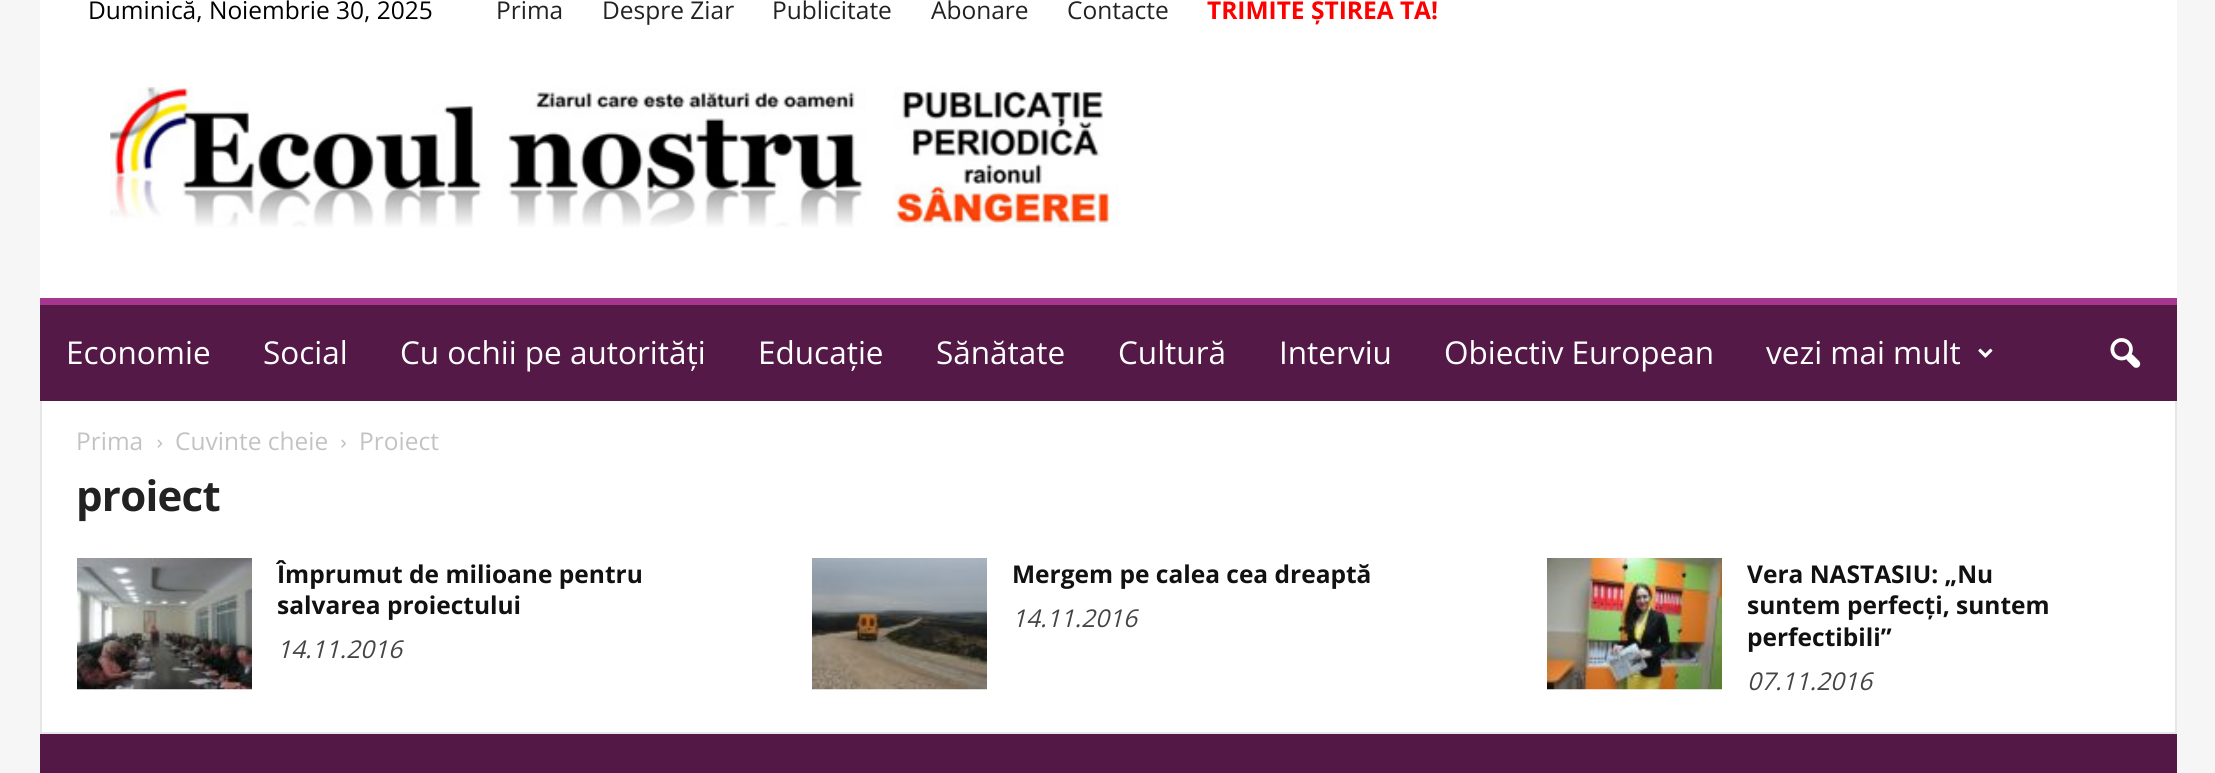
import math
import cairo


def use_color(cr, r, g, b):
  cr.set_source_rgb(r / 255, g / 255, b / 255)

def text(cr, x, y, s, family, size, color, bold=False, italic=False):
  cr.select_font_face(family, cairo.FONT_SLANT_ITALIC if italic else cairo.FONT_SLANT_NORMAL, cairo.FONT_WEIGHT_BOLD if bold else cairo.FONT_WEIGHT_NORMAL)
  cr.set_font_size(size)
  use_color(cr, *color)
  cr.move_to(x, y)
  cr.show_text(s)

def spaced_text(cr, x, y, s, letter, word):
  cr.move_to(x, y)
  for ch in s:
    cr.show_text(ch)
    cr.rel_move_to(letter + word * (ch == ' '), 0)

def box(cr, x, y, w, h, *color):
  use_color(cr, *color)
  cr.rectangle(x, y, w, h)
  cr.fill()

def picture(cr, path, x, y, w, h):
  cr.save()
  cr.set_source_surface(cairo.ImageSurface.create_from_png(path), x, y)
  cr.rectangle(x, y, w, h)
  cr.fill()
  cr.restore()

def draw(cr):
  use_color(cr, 247, 246, 246)
  cr.paint()
  box(cr, 40, 0, 2137, 298, 255, 255, 255)
  picture(cr, "img_01.png", 110, 87, 1008, 141)
  box(cr, 40, 305, 2137, 96, 84, 25, 71)
  box(cr, 40, 298, 2137, 7, 167, 55, 142)
  picture(cr, "img_02.png", 1978, 348, 15, 10)
  picture(cr, "img_03.png", 2110, 338, 31, 30)
  box(cr, 42, 401, 2133, 331, 255, 255, 255)
  box(cr, 40, 732, 2137, 2, 230, 230, 230)
  box(cr, 40, 401, 2, 331, 230, 230, 230)
  picture(cr, "img_04.png", 157, 439, 6, 9)
  picture(cr, "img_05.png", 341, 439, 5, 9)
  picture(cr, "img_06.png", 77, 558, 175, 132)
  picture(cr, "img_07.png", 812, 558, 175, 132)
  picture(cr, "img_08.png", 1547, 558, 175, 132)
  box(cr, 2175, 401, 2, 331, 230, 230, 230)
  box(cr, 40, 734, 2137, 39, 83, 24, 70)
  text(cr, 88, 19, "Duminică, Noiembrie 30, 2025", "Open Sans", 24.5, (0, 0, 0))
  text(cr, 496, 19, "Prima", "Open Sans", 24.5, (34, 34, 34))
  text(cr, 602, 19, "Despre Ziar", "Open Sans", 24.5, (34, 34, 34))
  text(cr, 772, 19, "Publicitate", "Open Sans", 24.5, (34, 34, 34))
  text(cr, 931, 19, "Abonare", "Open Sans", 24.5, (34, 34, 34))
  text(cr, 1067, 19, "Contacte", "Open Sans", 24.5, (34, 34, 34))
  text(cr, 1207, 19, "TRIMITE ȘTIREA TA!", "Open Sans", 24.5, (255, 0, 0), bold=True)
  text(cr, 66, 364, "Economie", "Open Sans", 31.5, (255, 255, 255))
  text(cr, 263, 364, "Social", "Open Sans", 31.5, (255, 255, 255))
  text(cr, 400, 364, "Cu ochii pe autorități", "Open Sans", 31.5, (255, 255, 255))
  text(cr, 758, 364, "Educație", "Open Sans", 31.5, (255, 255, 255))
  text(cr, 936, 364, "Sănătate", "Open Sans", 31.5, (255, 255, 255))
  text(cr, 1118, 364, "Cultură", "Open Sans", 31.5, (255, 255, 255))
  text(cr, 1279, 364, "Interviu", "Open Sans", 31.5, (255, 255, 255))
  text(cr, 1444, 364, "Obiectiv European", "Open Sans", 31.5, (255, 255, 255))
  text(cr, 1766, 364, "vezi mai mult", "Open Sans", 31.5, (255, 255, 255))
  text(cr, 76, 450, "Prima", "Open Sans", 24.5, (195, 195, 195))
  text(cr, 175, 450, "Cuvinte cheie", "Open Sans", 24.5, (195, 195, 195))
  text(cr, 359, 450, "Proiect", "Open Sans", 24.5, (195, 195, 195))
  cr.select_font_face("Open Sans", cairo.FONT_SLANT_NORMAL, cairo.FONT_WEIGHT_BOLD)
  cr.set_font_size(42)
  use_color(cr, 34, 34, 34)
  spaced_text(cr, 76, 511, "proiect", -0.75, 0)
  text(cr, 277, 583, "Împrumut de milioane pentru", "Open Sans", 24.5, (17, 17, 17), bold=True)
  text(cr, 277, 614, "salvarea proiectului", "Open Sans", 24.5, (17, 17, 17), bold=True)
  text(cr, 277, 658, "14.11.2016", "Open Sans", 24.5, (68, 68, 68), italic=True)
  text(cr, 1012, 583, "Mergem pe calea cea dreaptă", "Open Sans", 24.5, (17, 17, 17), bold=True)
  text(cr, 1012, 627, "14.11.2016", "Open Sans", 24.5, (68, 68, 68), italic=True)
  text(cr, 1747, 583, "Vera NASTASIU: „Nu", "Open Sans", 24.5, (17, 17, 17), bold=True)
  text(cr, 1747, 614, "suntem perfecți, suntem", "Open Sans", 24.5, (17, 17, 17), bold=True)
  text(cr, 1747, 646, "perfectibili”", "Open Sans", 24.5, (17, 17, 17), bold=True)
  text(cr, 1747, 690, "07.11.2016", "Open Sans", 24.5, (68, 68, 68), italic=True)


surface = cairo.ImageSurface(cairo.FORMAT_RGB24, 2215, 773)
cr = cairo.Context(surface)
options = cairo.FontOptions()
options.set_hint_metrics(cairo.HINT_METRICS_OFF)
options.set_hint_style(cairo.HINT_STYLE_NONE)
cr.set_font_options(options)
cr.set_miter_limit(4)
draw(cr)
surface.write_to_png("out.png")
